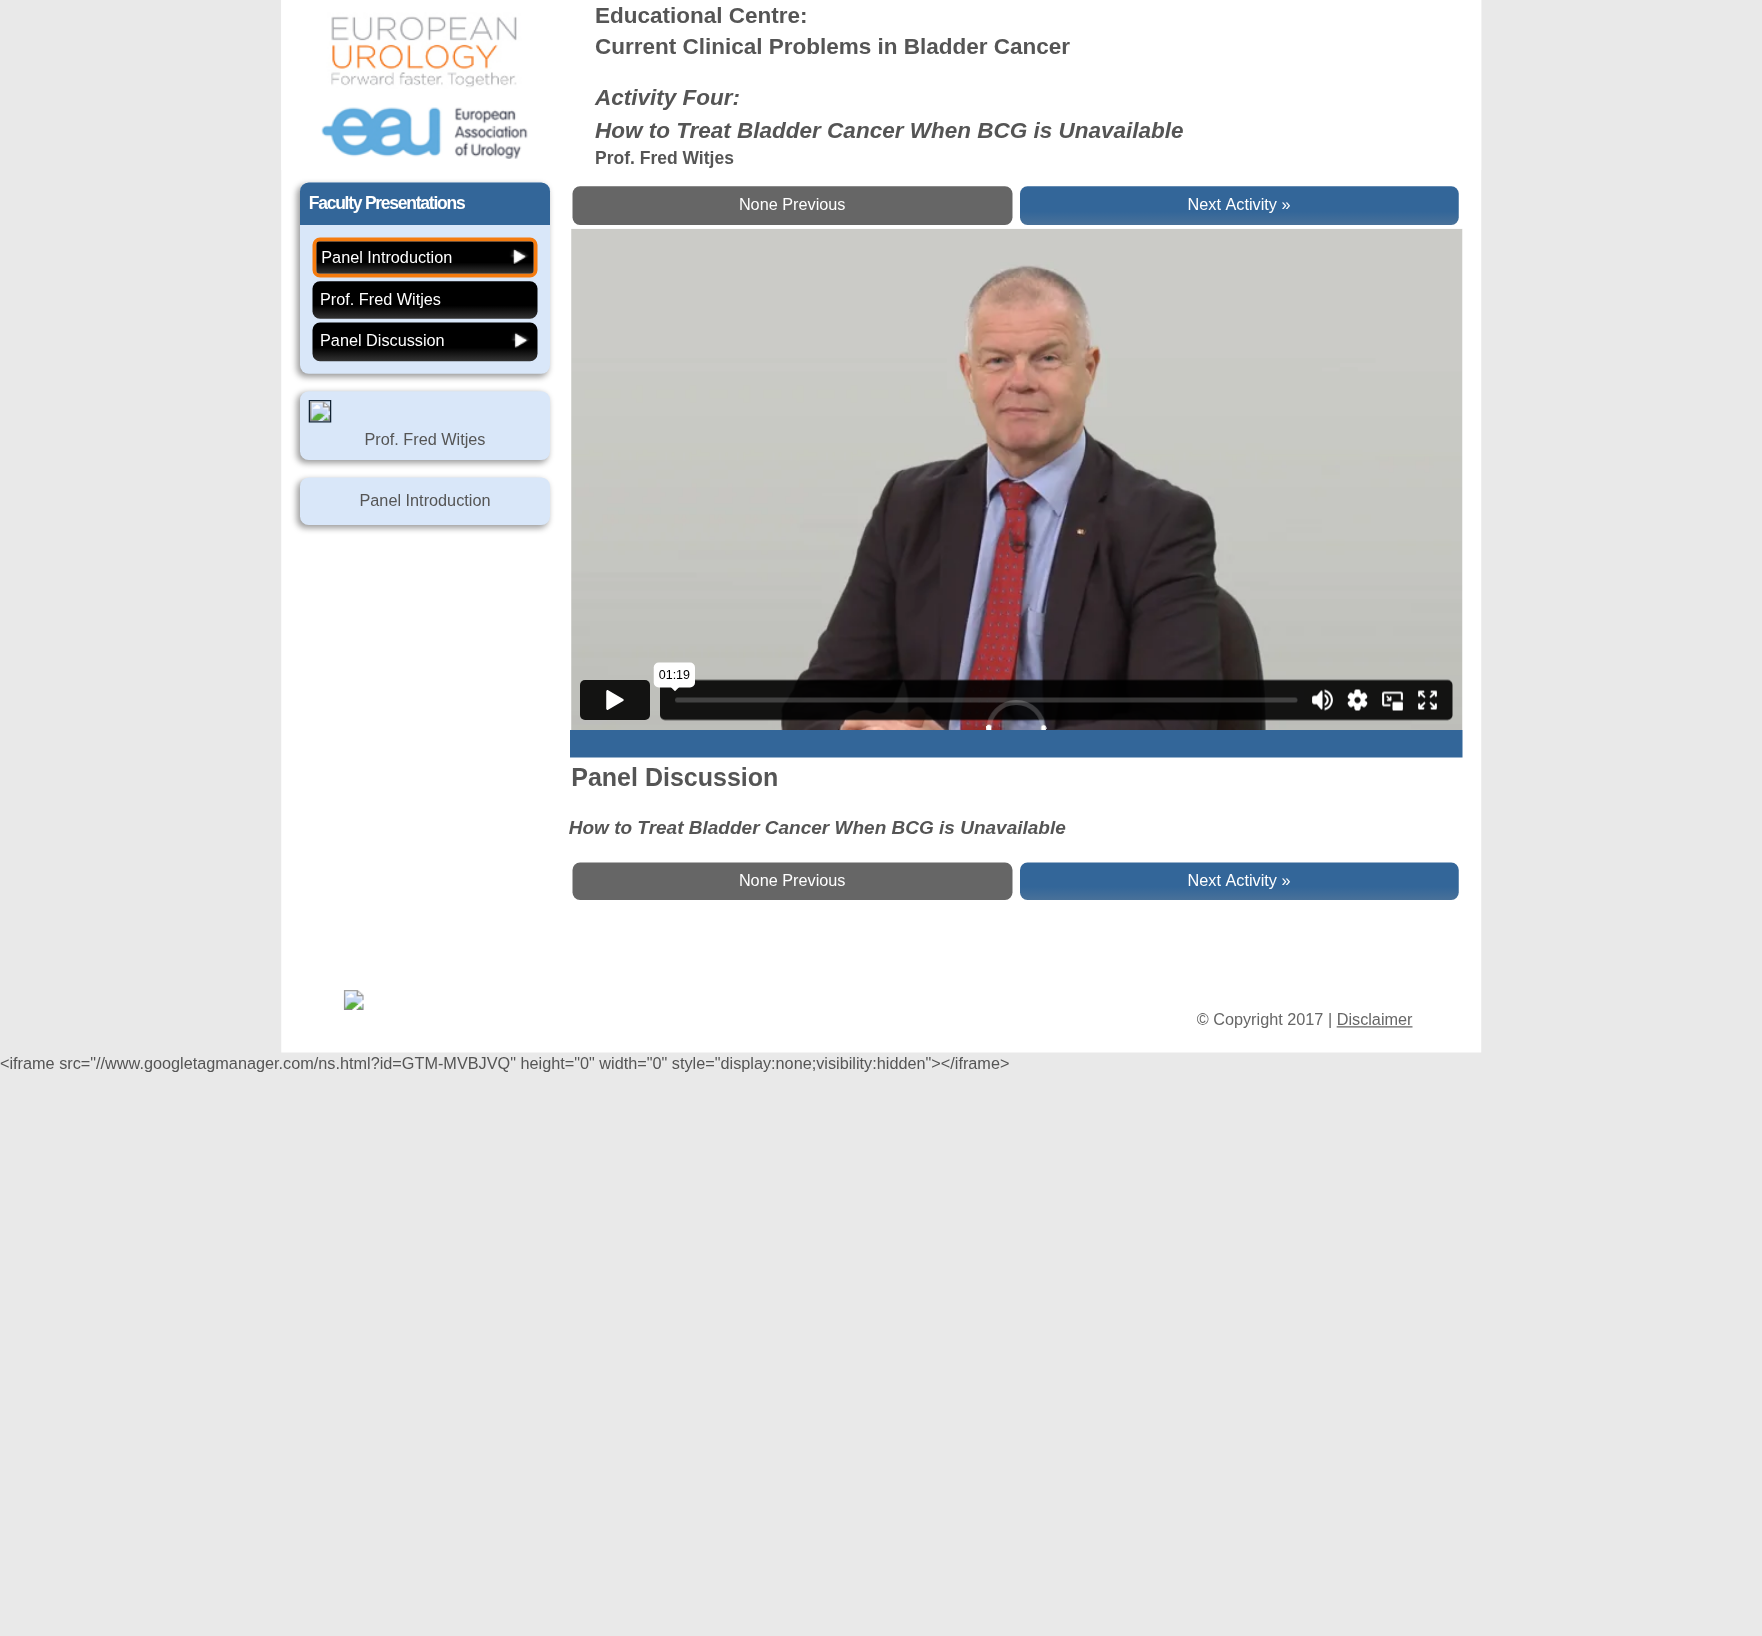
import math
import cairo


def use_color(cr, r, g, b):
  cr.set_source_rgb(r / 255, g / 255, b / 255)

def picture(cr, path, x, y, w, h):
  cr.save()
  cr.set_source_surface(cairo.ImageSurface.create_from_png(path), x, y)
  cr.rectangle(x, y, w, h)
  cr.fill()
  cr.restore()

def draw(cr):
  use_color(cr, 255, 255, 255)
  cr.paint()
  picture(cr, "img_01.png", 0, 0, 1762, 1636)


surface = cairo.ImageSurface(cairo.FORMAT_RGB24, 1762, 1636)
cr = cairo.Context(surface)
options = cairo.FontOptions()
options.set_hint_metrics(cairo.HINT_METRICS_OFF)
options.set_hint_style(cairo.HINT_STYLE_NONE)
cr.set_font_options(options)
cr.set_miter_limit(4)
draw(cr)
surface.write_to_png("out.png")
